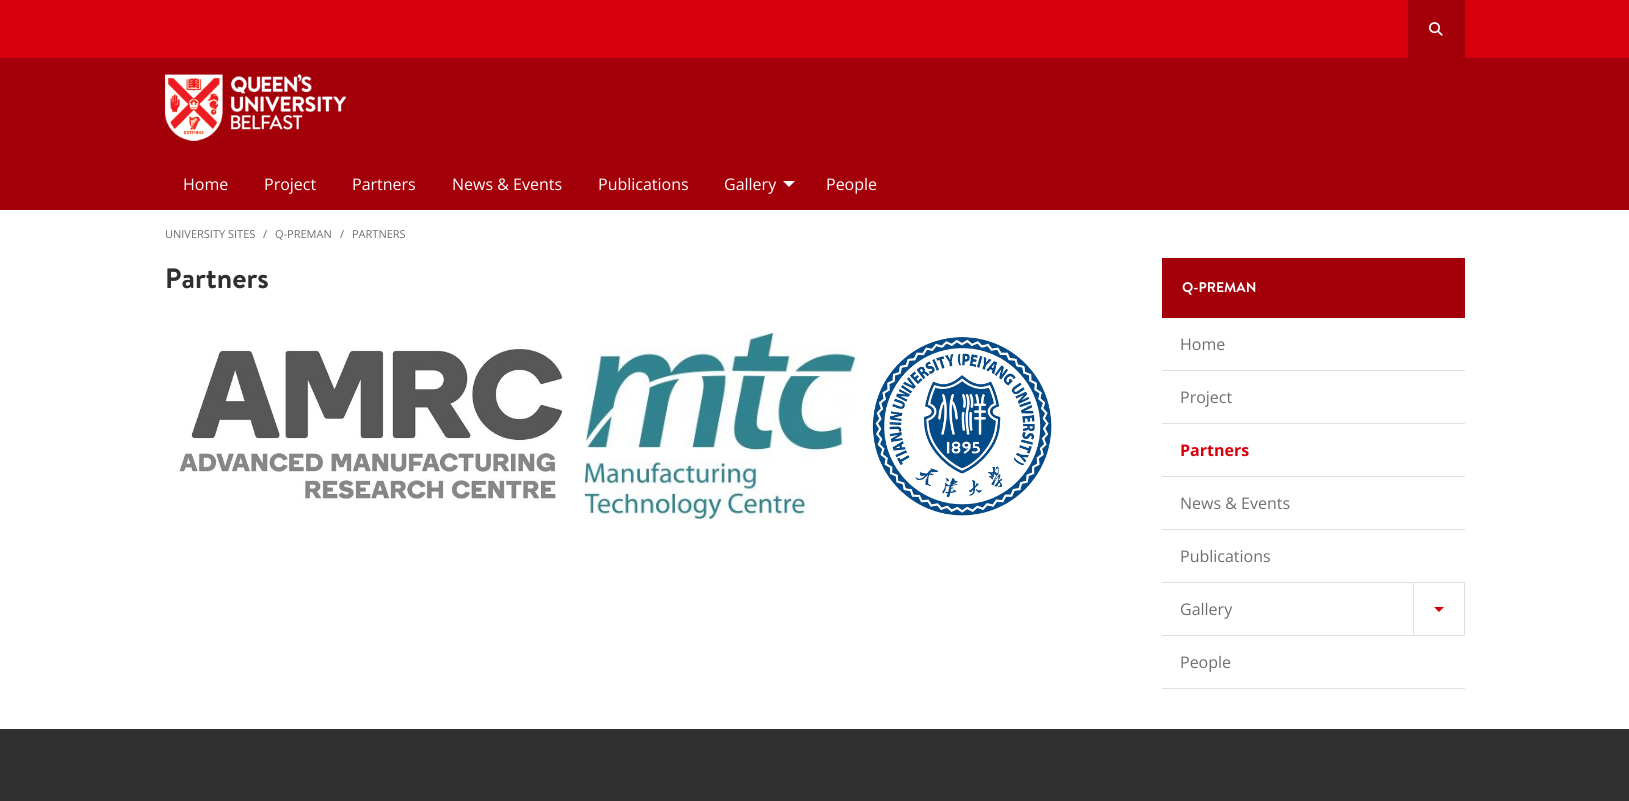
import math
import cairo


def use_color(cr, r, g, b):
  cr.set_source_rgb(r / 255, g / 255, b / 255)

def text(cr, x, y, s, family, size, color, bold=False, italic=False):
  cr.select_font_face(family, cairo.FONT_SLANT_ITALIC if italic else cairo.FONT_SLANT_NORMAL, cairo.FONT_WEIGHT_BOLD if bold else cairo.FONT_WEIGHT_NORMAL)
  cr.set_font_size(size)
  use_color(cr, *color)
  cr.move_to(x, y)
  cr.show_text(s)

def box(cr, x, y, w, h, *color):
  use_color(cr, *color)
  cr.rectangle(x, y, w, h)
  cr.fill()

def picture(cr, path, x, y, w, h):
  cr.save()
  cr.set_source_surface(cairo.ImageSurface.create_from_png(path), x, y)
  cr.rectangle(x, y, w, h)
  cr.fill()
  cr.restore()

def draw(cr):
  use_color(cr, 255, 255, 255)
  cr.paint()
  box(cr, 0, 58, 1629, 152, 163, 0, 10)
  box(cr, 0, 0, 1629, 58, 214, 0, 13)
  box(cr, 1408, 0, 57, 58, 163, 0, 10)
  picture(cr, "img_01.png", 1429, 22, 14, 14)
  picture(cr, "img_02.png", 165, 74, 182, 67)
  use_color(cr, 255, 255, 255)
  cr.new_path()
  cr.move_to(783, 181)
  cr.line_to(795, 181)
  cr.line_to(789, 187)
  cr.close_path()
  cr.fill()
  picture(cr, "img_03.png", 179, 347, 384, 154)
  picture(cr, "img_04.png", 585, 333, 270, 186)
  picture(cr, "img_05.png", 872, 337, 180, 179)
  box(cr, 1162, 258, 303, 60, 163, 0, 10)
  box(cr, 1162, 370, 303, 1, 224, 224, 224)
  box(cr, 1162, 423, 303, 1, 224, 224, 224)
  box(cr, 1162, 476, 303, 1, 224, 224, 224)
  box(cr, 1162, 529, 303, 1, 224, 224, 224)
  box(cr, 1162, 582, 303, 1, 224, 224, 224)
  box(cr, 1162, 635, 303, 1, 224, 224, 224)
  box(cr, 1464, 583, 1, 52, 224, 224, 224)
  box(cr, 1413, 583, 1, 52, 224, 224, 224)
  use_color(cr, 214, 0, 13)
  cr.new_path()
  cr.move_to(1434, 607)
  cr.line_to(1444, 607)
  cr.line_to(1439, 612)
  cr.close_path()
  cr.fill()
  box(cr, 1162, 688, 303, 1, 224, 224, 224)
  box(cr, 0, 729, 1629, 72, 47, 47, 47)
  text(cr, 183, 190, "Home", "Open Sans", 16, (255, 255, 255))
  text(cr, 264, 190, "Project", "Open Sans", 16, (255, 255, 255))
  text(cr, 352, 190, "Partners", "Open Sans", 16, (255, 255, 255))
  text(cr, 452, 190, "News & Events", "Open Sans", 16, (255, 255, 255))
  text(cr, 598, 190, "Publications", "Open Sans", 16, (255, 255, 255))
  text(cr, 724, 190, "Gallery", "Open Sans", 16, (255, 255, 255))
  text(cr, 826, 190, "People", "Open Sans", 16, (255, 255, 255))
  text(cr, 165, 238, "UNIVERSITY SITES", "Open Sans", 11, (110, 110, 110))
  text(cr, 263, 238, "/", "Open Sans", 11, (102, 102, 102))
  text(cr, 275, 238, "Q-PREMAN", "Open Sans", 11, (110, 110, 110))
  text(cr, 340, 238, "/", "Open Sans", 11, (102, 102, 102))
  text(cr, 352, 238, "PARTNERS", "Open Sans", 11, (110, 110, 110))
  text(cr, 165, 288, "Partners", "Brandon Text", 28, (47, 47, 47), bold=True)
  text(cr, 1182, 292, "Q-PREMAN", "Brandon Text", 14, (255, 255, 255), bold=True)
  text(cr, 1180, 350, "Home", "Open Sans", 16, (110, 110, 110))
  text(cr, 1180, 403, "Project", "Open Sans", 16, (110, 110, 110))
  text(cr, 1180, 456, "Partners", "Open Sans", 16, (214, 0, 13), bold=True)
  text(cr, 1180, 509, "News & Events", "Open Sans", 16, (110, 110, 110))
  text(cr, 1180, 562, "Publications", "Open Sans", 16, (110, 110, 110))
  text(cr, 1180, 615, "Gallery", "Open Sans", 16, (110, 110, 110))
  text(cr, 1180, 668, "People", "Open Sans", 16, (110, 110, 110))


surface = cairo.ImageSurface(cairo.FORMAT_RGB24, 1629, 801)
cr = cairo.Context(surface)
options = cairo.FontOptions()
options.set_hint_metrics(cairo.HINT_METRICS_OFF)
options.set_hint_style(cairo.HINT_STYLE_NONE)
cr.set_font_options(options)
cr.set_miter_limit(4)
draw(cr)
surface.write_to_png("out.png")
